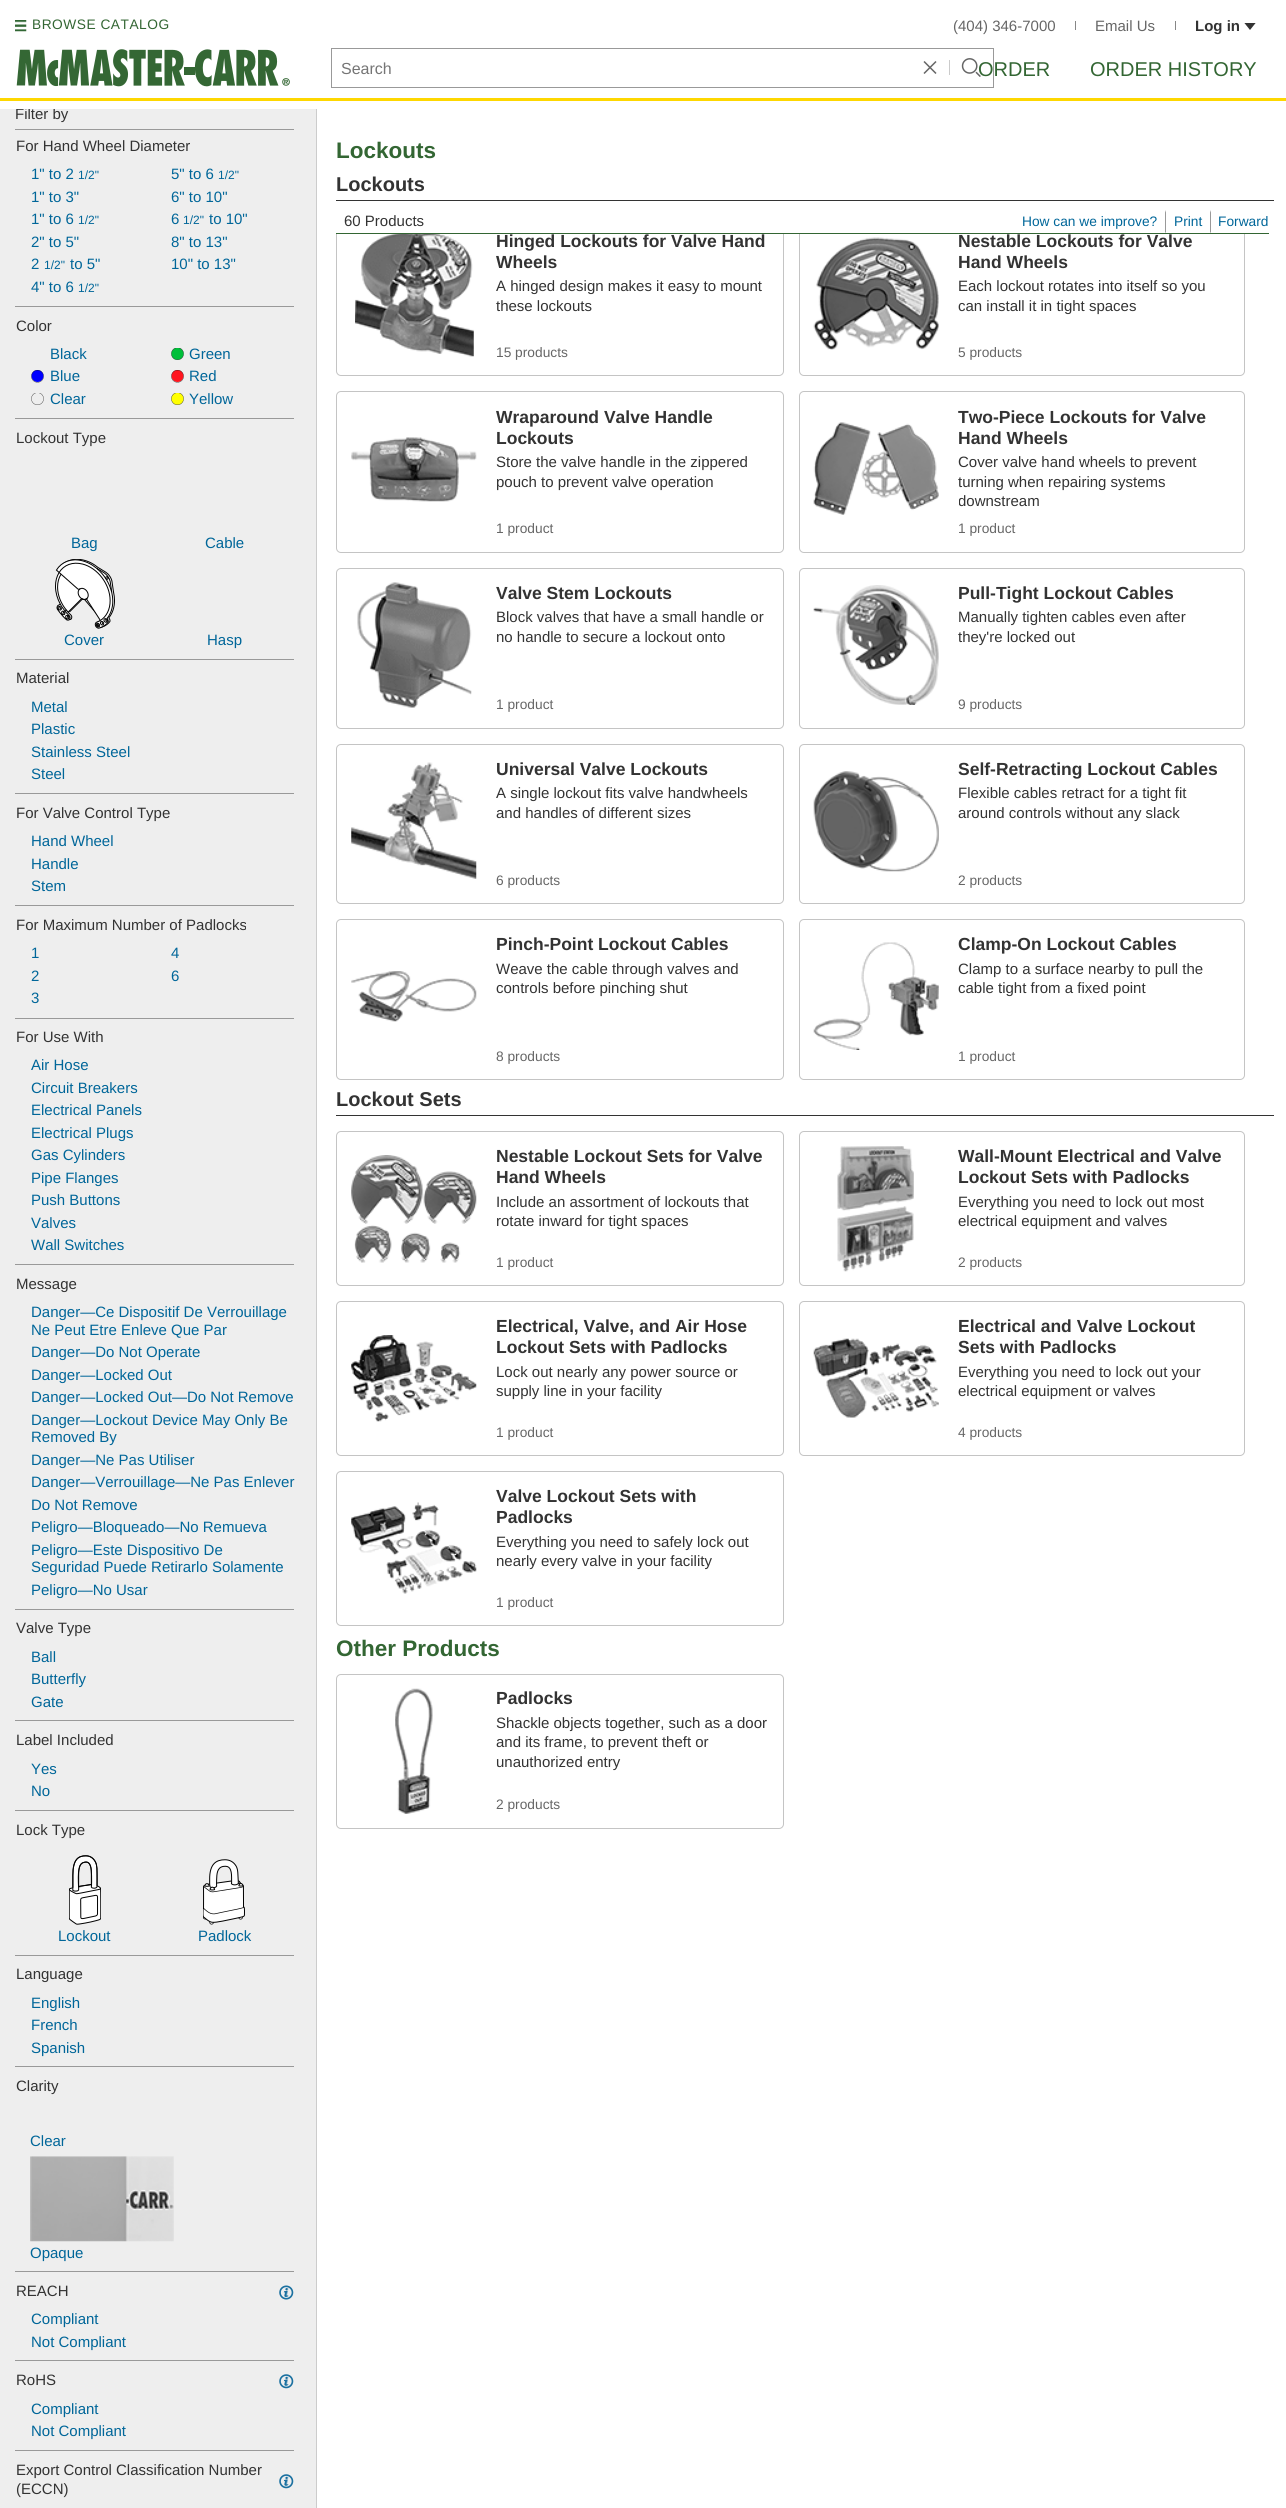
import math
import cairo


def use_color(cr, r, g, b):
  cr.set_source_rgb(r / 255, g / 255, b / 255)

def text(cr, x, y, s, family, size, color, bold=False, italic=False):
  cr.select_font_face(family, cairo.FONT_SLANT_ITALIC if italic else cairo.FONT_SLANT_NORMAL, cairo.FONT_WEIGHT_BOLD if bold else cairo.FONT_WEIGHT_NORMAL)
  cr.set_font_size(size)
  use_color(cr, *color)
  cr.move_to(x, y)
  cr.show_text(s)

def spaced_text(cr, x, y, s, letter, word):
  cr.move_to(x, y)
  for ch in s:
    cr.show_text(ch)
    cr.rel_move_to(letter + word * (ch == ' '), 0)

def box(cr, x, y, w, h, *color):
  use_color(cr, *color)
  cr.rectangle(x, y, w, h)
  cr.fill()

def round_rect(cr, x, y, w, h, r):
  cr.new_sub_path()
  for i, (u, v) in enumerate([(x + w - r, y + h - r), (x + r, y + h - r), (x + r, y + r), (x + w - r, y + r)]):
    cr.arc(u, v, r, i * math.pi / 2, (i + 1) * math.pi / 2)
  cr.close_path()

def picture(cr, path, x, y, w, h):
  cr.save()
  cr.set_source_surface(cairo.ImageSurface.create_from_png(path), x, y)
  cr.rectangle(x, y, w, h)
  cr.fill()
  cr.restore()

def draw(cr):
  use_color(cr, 255, 255, 255)
  cr.paint()
  box(cr, 0, 98, 1286, 3, 254, 215, 0)
  picture(cr, "img_01.png", 15, 20, 12, 12)
  box(cr, 1075, 21, 1, 9, 135, 135, 135)
  box(cr, 1175, 21, 1, 9, 135, 135, 135)
  cr.save()
  cr.rectangle(1244, 23, 12, 7)
  cr.clip()
  use_color(cr, 51, 51, 51)
  cr.new_path()
  cr.move_to(1244, 22.5)
  cr.line_to(1250, 30)
  cr.line_to(1256, 22.5)
  cr.close_path()
  cr.fill()
  cr.restore()
  picture(cr, "img_02.png", 16, 49, 274, 38)
  cr.rectangle(331.5, 48.5, 662, 39)
  use_color(cr, 153, 153, 153)
  cr.set_line_width(1)
  cr.stroke()
  cr.new_path()
  cr.move_to(924, 61.5)
  cr.line_to(936, 73.5)
  cr.move_to(936, 61.5)
  cr.line_to(924, 73.5)
  use_color(cr, 102, 102, 102)
  cr.set_line_width(1.5)
  cr.stroke()
  box(cr, 949, 60, 1, 15, 203, 203, 203)
  picture(cr, "img_03.png", 961, 58, 20, 19)
  box(cr, 0, 109, 316, 2399, 238, 238, 238)
  box(cr, 316, 109, 1, 2399, 204, 204, 204)
  box(cr, 15, 129, 279, 1, 153, 153, 153)
  box(cr, 15, 306, 279, 1, 153, 153, 153)
  picture(cr, "img_04.png", 31, 370, 13, 13)
  picture(cr, "img_05.png", 31, 393, 13, 12)
  picture(cr, "img_06.png", 171, 348, 13, 12)
  picture(cr, "img_07.png", 171, 370, 13, 13)
  picture(cr, "img_08.png", 171, 393, 13, 12)
  box(cr, 15, 418, 279, 1, 153, 153, 153)
  picture(cr, "img_09.png", 55, 559, 60, 70)
  box(cr, 15, 659, 279, 1, 153, 153, 153)
  box(cr, 15, 793, 279, 1, 153, 153, 153)
  box(cr, 15, 905, 279, 1, 153, 153, 153)
  box(cr, 15, 1018, 279, 1, 153, 153, 153)
  box(cr, 15, 1264, 279, 1, 153, 153, 153)
  box(cr, 15, 1609, 279, 1, 153, 153, 153)
  box(cr, 15, 1720, 279, 1, 153, 153, 153)
  box(cr, 15, 1810, 279, 1, 153, 153, 153)
  picture(cr, "img_10.png", 69, 1855, 32, 70)
  picture(cr, "img_11.png", 203, 1859, 42, 66)
  box(cr, 15, 1955, 279, 1, 153, 153, 153)
  box(cr, 15, 2066, 279, 1, 153, 153, 153)
  picture(cr, "img_12.png", 30, 2156, 144, 86)
  box(cr, 15, 2271, 279, 1, 153, 153, 153)
  picture(cr, "img_13.png", 279, 2285, 15, 15)
  box(cr, 15, 2360, 279, 1, 153, 153, 153)
  picture(cr, "img_14.png", 279, 2374, 15, 15)
  box(cr, 15, 2450, 279, 1, 153, 153, 153)
  picture(cr, "img_14.png", 279, 2474, 15, 15)
  box(cr, 336, 200, 938, 1, 51, 51, 51)
  round_rect(cr, 336.5, 216.5, 447, 159, 4.5)
  use_color(cr, 196, 196, 196)
  cr.set_line_width(1)
  cr.stroke()
  picture(cr, "img_15.png", 355, 234, 119, 123)
  round_rect(cr, 799.5, 216.5, 445, 159, 4.5)
  cr.stroke()
  picture(cr, "img_16.png", 813, 237, 126, 113)
  round_rect(cr, 336.5, 391.5, 447, 161, 4.5)
  cr.stroke()
  picture(cr, "img_17.png", 351, 437, 126, 65)
  round_rect(cr, 799.5, 391.5, 445, 161, 4.5)
  cr.stroke()
  picture(cr, "img_18.png", 813, 422, 126, 93)
  round_rect(cr, 336.5, 568.5, 447, 160, 4.5)
  cr.stroke()
  picture(cr, "img_19.png", 357, 582, 115, 126)
  round_rect(cr, 799.5, 568.5, 445, 160, 4.5)
  cr.stroke()
  picture(cr, "img_20.png", 813, 585, 126, 120)
  round_rect(cr, 336.5, 744.5, 447, 159, 4.5)
  cr.stroke()
  picture(cr, "img_21.png", 351, 762, 126, 117)
  round_rect(cr, 799.5, 744.5, 445, 159, 4.5)
  cr.stroke()
  picture(cr, "img_22.png", 813, 771, 126, 101)
  round_rect(cr, 336.5, 919.5, 447, 160, 4.5)
  cr.stroke()
  picture(cr, "img_23.png", 351, 971, 126, 51)
  round_rect(cr, 799.5, 919.5, 445, 160, 4.5)
  cr.stroke()
  picture(cr, "img_24.png", 813, 942, 126, 108)
  box(cr, 336, 1115, 938, 1, 51, 51, 51)
  round_rect(cr, 336.5, 1131.5, 447, 154, 4.5)
  use_color(cr, 196, 196, 196)
  cr.stroke()
  picture(cr, "img_25.png", 351, 1155, 126, 108)
  round_rect(cr, 799.5, 1131.5, 445, 154, 4.5)
  cr.stroke()
  picture(cr, "img_26.png", 837, 1146, 77, 126)
  round_rect(cr, 336.5, 1301.5, 447, 154, 4.5)
  cr.stroke()
  picture(cr, "img_27.png", 351, 1335, 126, 87)
  round_rect(cr, 799.5, 1301.5, 445, 154, 4.5)
  cr.stroke()
  picture(cr, "img_28.png", 813, 1338, 126, 80)
  round_rect(cr, 336.5, 1471.5, 447, 154, 4.5)
  cr.stroke()
  picture(cr, "img_29.png", 351, 1502, 126, 92)
  round_rect(cr, 336.5, 1674.5, 447, 154, 4.5)
  cr.stroke()
  picture(cr, "img_30.png", 395, 1688, 38, 126)
  box(cr, 336, 233, 933, 1, 51, 102, 51)
  box(cr, 336, 216, 909, 17, 255, 255, 255)
  use_color(cr, 153, 153, 153)
  cr.new_path()
  cr.move_to(1166, 210)
  cr.line_to(1166, 232.5)
  cr.line_to(1165, 232.5)
  cr.line_to(1165, 212.5)
  cr.close_path()
  cr.fill()
  cr.new_path()
  cr.move_to(1211, 210)
  cr.line_to(1211, 232.5)
  cr.line_to(1210, 232.5)
  cr.line_to(1210, 212.5)
  cr.close_path()
  cr.fill()
  cr.select_font_face("Liberation Sans")
  cr.set_font_size(13.75)
  use_color(cr, 51, 102, 51)
  spaced_text(cr, 32, 29, "BROWSE CATALOG", 0.5, 0)
  text(cr, 953, 31, "(404) 346-7000", "Liberation Sans", 15, (102, 102, 102))
  text(cr, 1095, 31, "Email Us", "Liberation Sans", 15, (102, 102, 102))
  text(cr, 1195, 31, "Log in", "Liberation Sans", 15, (51, 51, 51), bold=True)
  text(cr, 341, 74, "Search", "Liberation Sans", 16, (117, 117, 117))
  text(cr, 978, 76, "ORDER", "Liberation Sans", 20, (51, 102, 51))
  text(cr, 1090, 76, "ORDER HISTORY", "Liberation Sans", 20, (51, 102, 51))
  text(cr, 15, 119, "Filter by", "Liberation Sans", 15, (51, 51, 51))
  box(cr, 16, 108, 39, 1, 255, 255, 255)
  text(cr, 16, 151, "For Hand Wheel Diameter", "Liberation Sans", 15, (51, 51, 51))
  text(cr, 31, 179, "1\" to 2", "Liberation Sans", 15, (0, 102, 153))
  text(cr, 78, 179, "1/2\"", "Liberation Sans", 12, (0, 102, 153))
  text(cr, 31, 202, "1\" to 3\"", "Liberation Sans", 15, (0, 102, 153))
  text(cr, 31, 224, "1\" to 6", "Liberation Sans", 15, (0, 102, 153))
  text(cr, 78, 224, "1/2\"", "Liberation Sans", 12, (0, 102, 153))
  text(cr, 31, 247, "2\" to 5\"", "Liberation Sans", 15, (0, 102, 153))
  text(cr, 31, 269, "2", "Liberation Sans", 15, (0, 102, 153))
  text(cr, 44, 269, "1/2\"", "Liberation Sans", 12, (0, 102, 153))
  text(cr, 70, 269, "to 5\"", "Liberation Sans", 15, (0, 102, 153))
  text(cr, 31, 292, "4\" to 6", "Liberation Sans", 15, (0, 102, 153))
  text(cr, 78, 292, "1/2\"", "Liberation Sans", 12, (0, 102, 153))
  text(cr, 171, 179, "5\" to 6", "Liberation Sans", 15, (0, 102, 153))
  text(cr, 218, 179, "1/2\"", "Liberation Sans", 12, (0, 102, 153))
  text(cr, 171, 202, "6\" to 10\"", "Liberation Sans", 15, (0, 102, 153))
  text(cr, 171, 224, "6", "Liberation Sans", 15, (0, 102, 153))
  text(cr, 183, 224, "1/2\"", "Liberation Sans", 12, (0, 102, 153))
  text(cr, 209, 224, "to 10\"", "Liberation Sans", 15, (0, 102, 153))
  text(cr, 171, 247, "8\" to 13\"", "Liberation Sans", 15, (0, 102, 153))
  text(cr, 171, 269, "10\" to 13\"", "Liberation Sans", 15, (0, 102, 153))
  text(cr, 16, 331, "Color", "Liberation Sans", 15, (51, 51, 51))
  text(cr, 50, 359, "Black", "Liberation Sans", 15, (0, 102, 153))
  text(cr, 50, 381, "Blue", "Liberation Sans", 15, (0, 102, 153))
  text(cr, 50, 404, "Clear", "Liberation Sans", 15, (0, 102, 153))
  text(cr, 189, 359, "Green", "Liberation Sans", 15, (0, 102, 153))
  text(cr, 189, 381, "Red", "Liberation Sans", 15, (0, 102, 153))
  text(cr, 189, 404, "Yellow", "Liberation Sans", 15, (0, 102, 153))
  text(cr, 16, 443, "Lockout Type", "Liberation Sans", 15, (51, 51, 51))
  text(cr, 71, 548, "Bag", "Liberation Sans", 15, (0, 102, 153))
  text(cr, 205, 548, "Cable", "Liberation Sans", 15, (0, 102, 153))
  text(cr, 64, 645, "Cover", "Liberation Sans", 15, (0, 102, 153))
  text(cr, 207, 645, "Hasp", "Liberation Sans", 15, (0, 102, 153))
  text(cr, 16, 683, "Material", "Liberation Sans", 15, (51, 51, 51))
  text(cr, 31, 712, "Metal", "Liberation Sans", 15, (0, 102, 153))
  text(cr, 31, 734, "Plastic", "Liberation Sans", 15, (0, 102, 153))
  text(cr, 31, 757, "Stainless Steel", "Liberation Sans", 15, (0, 102, 153))
  text(cr, 31, 779, "Steel", "Liberation Sans", 15, (0, 102, 153))
  text(cr, 16, 818, "For Valve Control Type", "Liberation Sans", 15, (51, 51, 51))
  text(cr, 31, 846, "Hand Wheel", "Liberation Sans", 15, (0, 102, 153))
  text(cr, 31, 869, "Handle", "Liberation Sans", 15, (0, 102, 153))
  text(cr, 31, 891, "Stem", "Liberation Sans", 15, (0, 102, 153))
  text(cr, 16, 930, "For Maximum Number of Padlocks", "Liberation Sans", 15, (51, 51, 51))
  text(cr, 31, 958, "1", "Liberation Sans", 15, (0, 102, 153))
  text(cr, 31, 981, "2", "Liberation Sans", 15, (0, 102, 153))
  text(cr, 31, 1003, "3", "Liberation Sans", 15, (0, 102, 153))
  text(cr, 171, 958, "4", "Liberation Sans", 15, (0, 102, 153))
  text(cr, 171, 981, "6", "Liberation Sans", 15, (0, 102, 153))
  text(cr, 16, 1042, "For Use With", "Liberation Sans", 15, (51, 51, 51))
  text(cr, 31, 1070, "Air Hose", "Liberation Sans", 15, (0, 102, 153))
  text(cr, 31, 1093, "Circuit Breakers", "Liberation Sans", 15, (0, 102, 153))
  text(cr, 31, 1115, "Electrical Panels", "Liberation Sans", 15, (0, 102, 153))
  text(cr, 31, 1138, "Electrical Plugs", "Liberation Sans", 15, (0, 102, 153))
  text(cr, 31, 1160, "Gas Cylinders", "Liberation Sans", 15, (0, 102, 153))
  text(cr, 31, 1183, "Pipe Flanges", "Liberation Sans", 15, (0, 102, 153))
  text(cr, 31, 1205, "Push Buttons", "Liberation Sans", 15, (0, 102, 153))
  text(cr, 31, 1228, "Valves", "Liberation Sans", 15, (0, 102, 153))
  text(cr, 31, 1250, "Wall Switches", "Liberation Sans", 15, (0, 102, 153))
  text(cr, 16, 1289, "Message", "Liberation Sans", 15, (51, 51, 51))
  text(cr, 31, 1317, "Danger—Ce Dispositif De Verrouillage", "Liberation Sans", 15, (0, 102, 153))
  text(cr, 31, 1335, "Ne Peut Etre Enleve Que Par", "Liberation Sans", 15, (0, 102, 153))
  text(cr, 31, 1357, "Danger—Do Not Operate", "Liberation Sans", 15, (0, 102, 153))
  text(cr, 31, 1380, "Danger—Locked Out", "Liberation Sans", 15, (0, 102, 153))
  text(cr, 31, 1402, "Danger—Locked Out—Do Not Remove", "Liberation Sans", 15, (0, 102, 153))
  text(cr, 31, 1425, "Danger—Lockout Device May Only Be", "Liberation Sans", 15, (0, 102, 153))
  text(cr, 31, 1442, "Removed By", "Liberation Sans", 15, (0, 102, 153))
  text(cr, 31, 1465, "Danger—Ne Pas Utiliser", "Liberation Sans", 15, (0, 102, 153))
  text(cr, 31, 1487, "Danger—Verrouillage—Ne Pas Enlever", "Liberation Sans", 15, (0, 102, 153))
  text(cr, 31, 1510, "Do Not Remove", "Liberation Sans", 15, (0, 102, 153))
  text(cr, 31, 1532, "Peligro—Bloqueado—No Remueva", "Liberation Sans", 15, (0, 102, 153))
  text(cr, 31, 1555, "Peligro—Este Dispositivo De", "Liberation Sans", 15, (0, 102, 153))
  text(cr, 31, 1572, "Seguridad Puede Retirarlo Solamente", "Liberation Sans", 15, (0, 102, 153))
  text(cr, 31, 1595, "Peligro—No Usar", "Liberation Sans", 15, (0, 102, 153))
  text(cr, 16, 1633, "Valve Type", "Liberation Sans", 15, (51, 51, 51))
  text(cr, 31, 1662, "Ball", "Liberation Sans", 15, (0, 102, 153))
  text(cr, 31, 1684, "Butterfly", "Liberation Sans", 15, (0, 102, 153))
  text(cr, 31, 1707, "Gate", "Liberation Sans", 15, (0, 102, 153))
  text(cr, 16, 1745, "Label Included", "Liberation Sans", 15, (51, 51, 51))
  text(cr, 31, 1774, "Yes", "Liberation Sans", 15, (0, 102, 153))
  text(cr, 31, 1796, "No", "Liberation Sans", 15, (0, 102, 153))
  text(cr, 16, 1835, "Lock Type", "Liberation Sans", 15, (51, 51, 51))
  text(cr, 58, 1941, "Lockout", "Liberation Sans", 15, (0, 102, 153))
  text(cr, 198, 1941, "Padlock", "Liberation Sans", 15, (0, 102, 153))
  text(cr, 16, 1979, "Language", "Liberation Sans", 15, (51, 51, 51))
  text(cr, 31, 2008, "English", "Liberation Sans", 15, (0, 102, 153))
  text(cr, 31, 2030, "French", "Liberation Sans", 15, (0, 102, 153))
  text(cr, 31, 2053, "Spanish", "Liberation Sans", 15, (0, 102, 153))
  text(cr, 16, 2091, "Clarity", "Liberation Sans", 15, (51, 51, 51))
  text(cr, 30, 2146, "Clear", "Liberation Sans", 15, (0, 102, 153))
  text(cr, 30, 2258, "Opaque", "Liberation Sans", 15, (0, 102, 153))
  text(cr, 16, 2296, "REACH", "Liberation Sans", 15, (51, 51, 51))
  text(cr, 31, 2324, "Compliant", "Liberation Sans", 15, (0, 102, 153))
  text(cr, 31, 2347, "Not Compliant", "Liberation Sans", 15, (0, 102, 153))
  text(cr, 16, 2385, "RoHS", "Liberation Sans", 15, (51, 51, 51))
  text(cr, 31, 2414, "Compliant", "Liberation Sans", 15, (0, 102, 153))
  text(cr, 31, 2436, "Not Compliant", "Liberation Sans", 15, (0, 102, 153))
  text(cr, 16, 2475, "Export Control Classification Number", "Liberation Sans", 15, (51, 51, 51))
  text(cr, 16, 2494, "(ECCN)", "Liberation Sans", 15, (51, 51, 51))
  text(cr, 336, 158, "Lockouts", "Liberation Sans", 22.5, (51, 102, 51), bold=True)
  text(cr, 336, 191, "Lockouts", "Liberation Sans", 20, (51, 51, 51), bold=True)
  text(cr, 496, 247, "Hinged Lockouts for Valve Hand", "Liberation Sans", 17.5, (51, 51, 51), bold=True)
  text(cr, 496, 268, "Wheels", "Liberation Sans", 17.5, (51, 51, 51), bold=True)
  text(cr, 496, 291, "A hinged design makes it easy to mount", "Liberation Sans", 15, (51, 51, 51))
  text(cr, 496, 311, "these lockouts", "Liberation Sans", 15, (51, 51, 51))
  text(cr, 496, 357, "15 products", "Liberation Sans", 13.75, (102, 102, 102))
  text(cr, 958, 247, "Nestable Lockouts for Valve", "Liberation Sans", 17.5, (51, 51, 51), bold=True)
  text(cr, 958, 268, "Hand Wheels", "Liberation Sans", 17.5, (51, 51, 51), bold=True)
  text(cr, 958, 291, "Each lockout rotates into itself so you", "Liberation Sans", 15, (51, 51, 51))
  text(cr, 958, 311, "can install it in tight spaces", "Liberation Sans", 15, (51, 51, 51))
  text(cr, 958, 357, "5 products", "Liberation Sans", 13.75, (102, 102, 102))
  text(cr, 496, 423, "Wraparound Valve Handle", "Liberation Sans", 17.5, (51, 51, 51), bold=True)
  text(cr, 496, 444, "Lockouts", "Liberation Sans", 17.5, (51, 51, 51), bold=True)
  text(cr, 496, 467, "Store the valve handle in the zippered", "Liberation Sans", 15, (51, 51, 51))
  text(cr, 496, 487, "pouch to prevent valve operation", "Liberation Sans", 15, (51, 51, 51))
  text(cr, 496, 533, "1 product", "Liberation Sans", 13.75, (102, 102, 102))
  text(cr, 958, 423, "Two-Piece Lockouts for Valve", "Liberation Sans", 17.5, (51, 51, 51), bold=True)
  text(cr, 958, 444, "Hand Wheels", "Liberation Sans", 17.5, (51, 51, 51), bold=True)
  text(cr, 958, 467, "Cover valve hand wheels to prevent", "Liberation Sans", 15, (51, 51, 51))
  text(cr, 958, 487, "turning when repairing systems", "Liberation Sans", 15, (51, 51, 51))
  cr.save()
  cr.rectangle(959, 454, 271, 59)
  cr.clip()
  text(cr, 958, 506, "downstream", "Liberation Sans", 15, (51, 51, 51))
  cr.restore()
  text(cr, 958, 533, "1 product", "Liberation Sans", 13.75, (102, 102, 102))
  text(cr, 496, 599, "Valve Stem Lockouts", "Liberation Sans", 17.5, (51, 51, 51), bold=True)
  text(cr, 496, 622, "Block valves that have a small handle or", "Liberation Sans", 15, (51, 51, 51))
  text(cr, 496, 642, "no handle to secure a lockout onto", "Liberation Sans", 15, (51, 51, 51))
  text(cr, 496, 709, "1 product", "Liberation Sans", 13.75, (102, 102, 102))
  text(cr, 958, 599, "Pull-Tight Lockout Cables", "Liberation Sans", 17.5, (51, 51, 51), bold=True)
  text(cr, 958, 622, "Manually tighten cables even after", "Liberation Sans", 15, (51, 51, 51))
  text(cr, 958, 642, "they're locked out", "Liberation Sans", 15, (51, 51, 51))
  text(cr, 958, 709, "9 products", "Liberation Sans", 13.75, (102, 102, 102))
  text(cr, 496, 775, "Universal Valve Lockouts", "Liberation Sans", 17.5, (51, 51, 51), bold=True)
  text(cr, 496, 798, "A single lockout fits valve handwheels", "Liberation Sans", 15, (51, 51, 51))
  text(cr, 496, 818, "and handles of different sizes", "Liberation Sans", 15, (51, 51, 51))
  text(cr, 496, 885, "6 products", "Liberation Sans", 13.75, (102, 102, 102))
  text(cr, 958, 775, "Self-Retracting Lockout Cables", "Liberation Sans", 17.5, (51, 51, 51), bold=True)
  text(cr, 958, 798, "Flexible cables retract for a tight fit", "Liberation Sans", 15, (51, 51, 51))
  text(cr, 958, 818, "around controls without any slack", "Liberation Sans", 15, (51, 51, 51))
  text(cr, 958, 885, "2 products", "Liberation Sans", 13.75, (102, 102, 102))
  text(cr, 496, 950, "Pinch-Point Lockout Cables", "Liberation Sans", 17.5, (51, 51, 51), bold=True)
  text(cr, 496, 974, "Weave the cable through valves and", "Liberation Sans", 15, (51, 51, 51))
  text(cr, 496, 993, "controls before pinching shut", "Liberation Sans", 15, (51, 51, 51))
  text(cr, 496, 1061, "8 products", "Liberation Sans", 13.75, (102, 102, 102))
  text(cr, 958, 950, "Clamp-On Lockout Cables", "Liberation Sans", 17.5, (51, 51, 51), bold=True)
  text(cr, 958, 974, "Clamp to a surface nearby to pull the", "Liberation Sans", 15, (51, 51, 51))
  text(cr, 958, 993, "cable tight from a fixed point", "Liberation Sans", 15, (51, 51, 51))
  text(cr, 958, 1061, "1 product", "Liberation Sans", 13.75, (102, 102, 102))
  text(cr, 336, 1106, "Lockout Sets", "Liberation Sans", 20, (51, 51, 51), bold=True)
  text(cr, 496, 1162, "Nestable Lockout Sets for Valve", "Liberation Sans", 17.5, (51, 51, 51), bold=True)
  text(cr, 496, 1183, "Hand Wheels", "Liberation Sans", 17.5, (51, 51, 51), bold=True)
  text(cr, 496, 1207, "Include an assortment of lockouts that", "Liberation Sans", 15, (51, 51, 51))
  text(cr, 496, 1226, "rotate inward for tight spaces", "Liberation Sans", 15, (51, 51, 51))
  text(cr, 496, 1267, "1 product", "Liberation Sans", 13.75, (102, 102, 102))
  text(cr, 958, 1162, "Wall-Mount Electrical and Valve", "Liberation Sans", 17.5, (51, 51, 51), bold=True)
  text(cr, 958, 1183, "Lockout Sets with Padlocks", "Liberation Sans", 17.5, (51, 51, 51), bold=True)
  text(cr, 958, 1207, "Everything you need to lock out most", "Liberation Sans", 15, (51, 51, 51))
  text(cr, 958, 1226, "electrical equipment and valves", "Liberation Sans", 15, (51, 51, 51))
  text(cr, 958, 1267, "2 products", "Liberation Sans", 13.75, (102, 102, 102))
  text(cr, 496, 1332, "Electrical, Valve, and Air Hose", "Liberation Sans", 17.5, (51, 51, 51), bold=True)
  text(cr, 496, 1353, "Lockout Sets with Padlocks", "Liberation Sans", 17.5, (51, 51, 51), bold=True)
  text(cr, 496, 1377, "Lock out nearly any power source or", "Liberation Sans", 15, (51, 51, 51))
  text(cr, 496, 1396, "supply line in your facility", "Liberation Sans", 15, (51, 51, 51))
  text(cr, 496, 1437, "1 product", "Liberation Sans", 13.75, (102, 102, 102))
  text(cr, 958, 1332, "Electrical and Valve Lockout", "Liberation Sans", 17.5, (51, 51, 51), bold=True)
  text(cr, 958, 1353, "Sets with Padlocks", "Liberation Sans", 17.5, (51, 51, 51), bold=True)
  text(cr, 958, 1377, "Everything you need to lock out your", "Liberation Sans", 15, (51, 51, 51))
  text(cr, 958, 1396, "electrical equipment or valves", "Liberation Sans", 15, (51, 51, 51))
  text(cr, 958, 1437, "4 products", "Liberation Sans", 13.75, (102, 102, 102))
  text(cr, 496, 1502, "Valve Lockout Sets with", "Liberation Sans", 17.5, (51, 51, 51), bold=True)
  text(cr, 496, 1523, "Padlocks", "Liberation Sans", 17.5, (51, 51, 51), bold=True)
  text(cr, 496, 1547, "Everything you need to safely lock out", "Liberation Sans", 15, (51, 51, 51))
  text(cr, 496, 1566, "nearly every valve in your facility", "Liberation Sans", 15, (51, 51, 51))
  text(cr, 496, 1607, "1 product", "Liberation Sans", 13.75, (102, 102, 102))
  text(cr, 336, 1656, "Other Products", "Liberation Sans", 22.5, (51, 102, 51), bold=True)
  text(cr, 496, 1704, "Padlocks", "Liberation Sans", 17.5, (51, 51, 51), bold=True)
  text(cr, 496, 1728, "Shackle objects together, such as a door", "Liberation Sans", 15, (51, 51, 51))
  text(cr, 496, 1747, "and its frame, to prevent theft or", "Liberation Sans", 15, (51, 51, 51))
  text(cr, 496, 1767, "unauthorized entry", "Liberation Sans", 15, (51, 51, 51))
  text(cr, 496, 1809, "2 products", "Liberation Sans", 13.75, (102, 102, 102))
  text(cr, 344, 226, "60 Products", "Liberation Sans", 15, (51, 51, 51))
  text(cr, 1022, 226, "How can we improve?", "Liberation Sans", 13.75, (0, 102, 153))
  text(cr, 1174, 226, "Print", "Liberation Sans", 13.75, (0, 102, 153))
  text(cr, 1218, 226, "Forward", "Liberation Sans", 13.75, (0, 102, 153))


surface = cairo.ImageSurface(cairo.FORMAT_RGB24, 1286, 2508)
cr = cairo.Context(surface)
options = cairo.FontOptions()
options.set_hint_metrics(cairo.HINT_METRICS_OFF)
options.set_hint_style(cairo.HINT_STYLE_NONE)
cr.set_font_options(options)
cr.set_miter_limit(4)
draw(cr)
surface.write_to_png("out.png")
